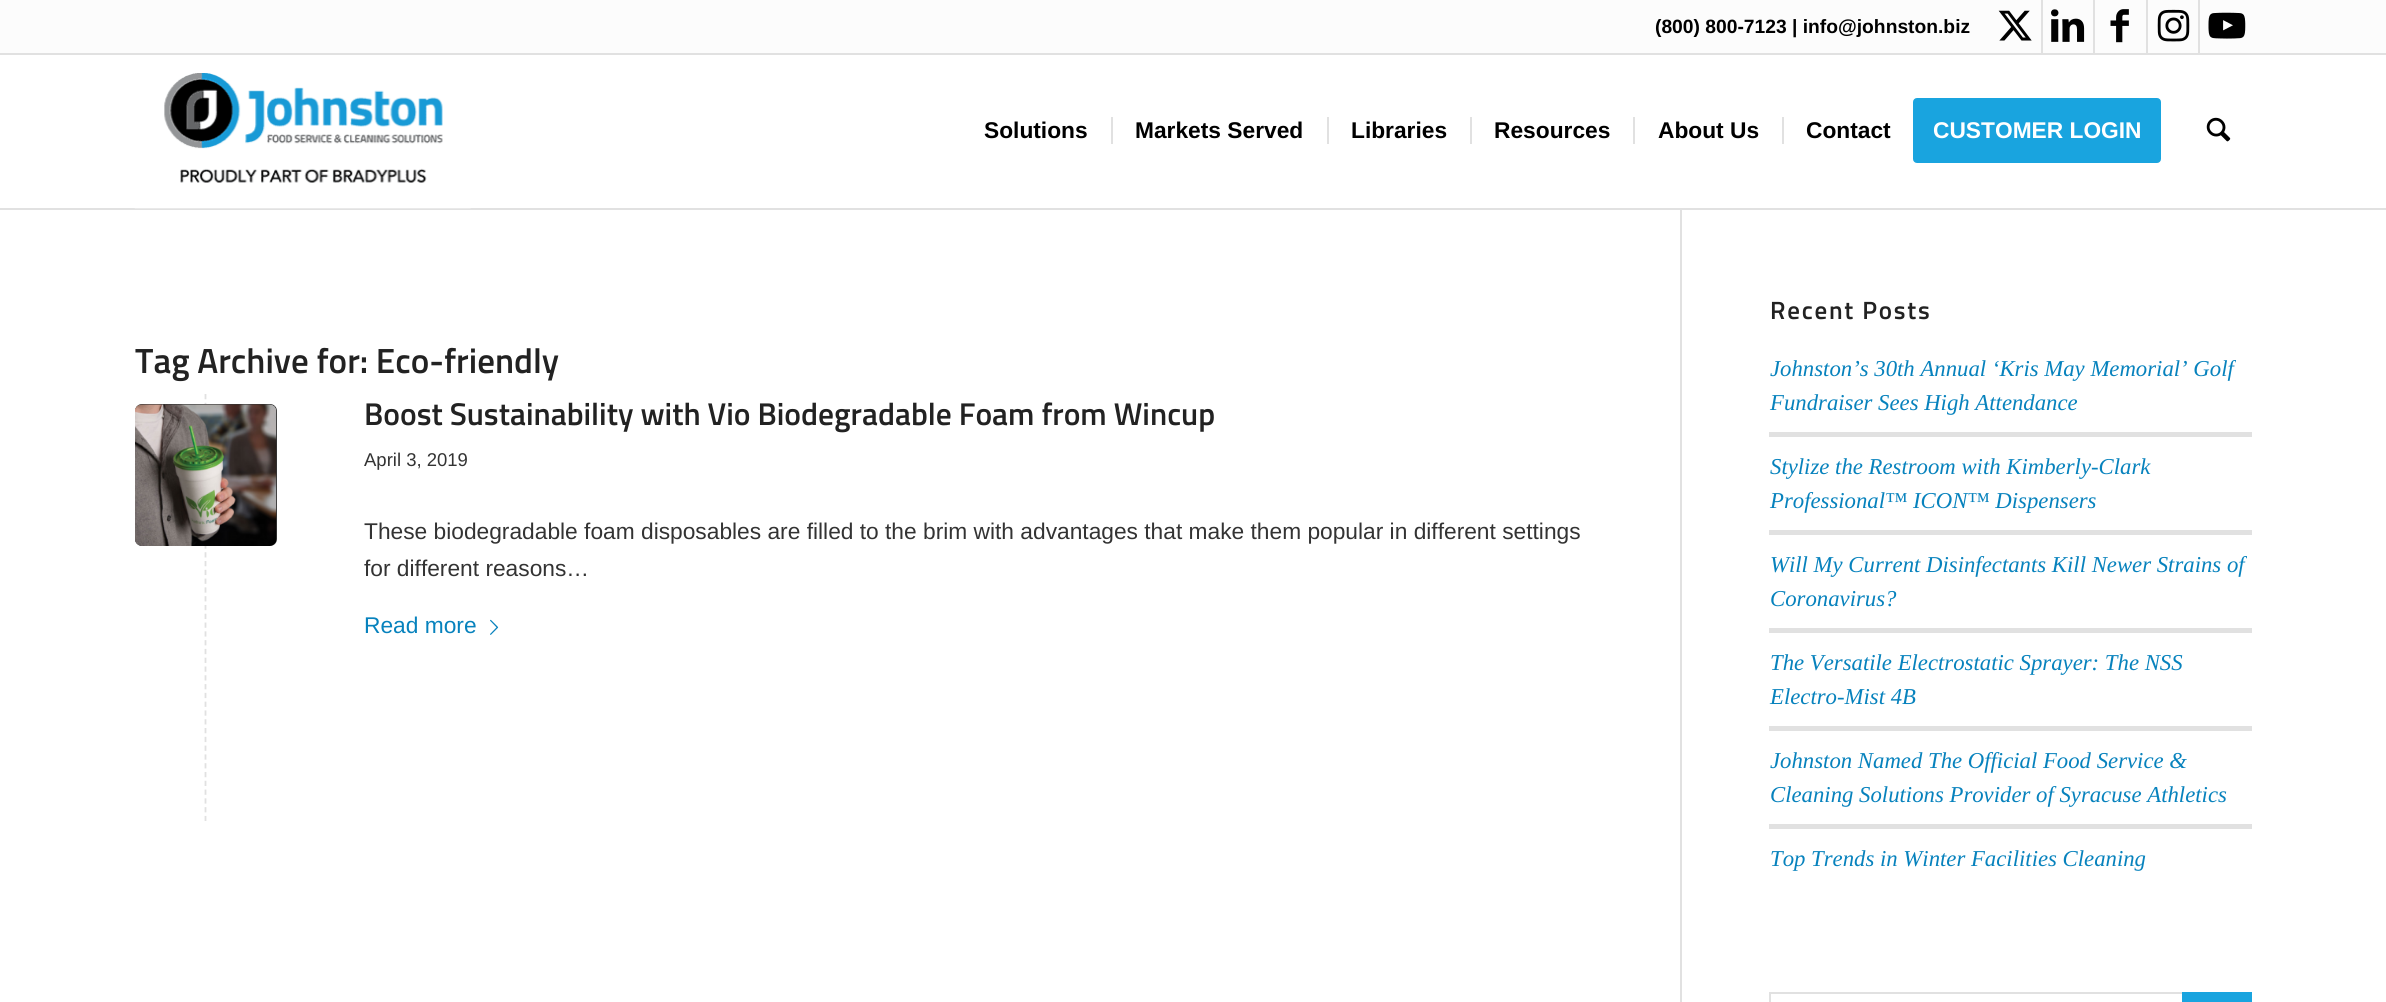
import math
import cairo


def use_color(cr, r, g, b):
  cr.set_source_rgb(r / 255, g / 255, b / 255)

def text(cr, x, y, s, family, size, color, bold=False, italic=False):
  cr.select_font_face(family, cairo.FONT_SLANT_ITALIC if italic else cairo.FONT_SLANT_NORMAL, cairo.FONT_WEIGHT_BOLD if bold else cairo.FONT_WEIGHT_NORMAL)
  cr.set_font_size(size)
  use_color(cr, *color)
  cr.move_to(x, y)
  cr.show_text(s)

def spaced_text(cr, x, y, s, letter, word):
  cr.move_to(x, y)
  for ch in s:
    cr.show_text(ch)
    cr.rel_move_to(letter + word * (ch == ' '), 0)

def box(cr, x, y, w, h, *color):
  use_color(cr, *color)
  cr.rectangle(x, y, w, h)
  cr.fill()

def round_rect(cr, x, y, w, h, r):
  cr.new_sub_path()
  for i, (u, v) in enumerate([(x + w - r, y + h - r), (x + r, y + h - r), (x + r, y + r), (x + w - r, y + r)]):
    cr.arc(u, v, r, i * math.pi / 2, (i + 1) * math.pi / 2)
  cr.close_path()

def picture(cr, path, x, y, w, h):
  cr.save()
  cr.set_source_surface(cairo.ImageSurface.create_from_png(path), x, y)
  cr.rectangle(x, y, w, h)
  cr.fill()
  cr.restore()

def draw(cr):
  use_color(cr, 255, 255, 255)
  cr.paint()
  box(cr, 0, 0, 2386, 53, 252, 252, 252)
  box(cr, 0, 53, 2386, 2, 225, 225, 225)
  box(cr, 2041, 0, 2, 53, 225, 225, 225)
  picture(cr, "img_01.png", 1998, 10, 34, 31)
  box(cr, 2093, 0, 2, 53, 225, 225, 225)
  picture(cr, "img_02.png", 2051, 9, 34, 33)
  box(cr, 2146, 0, 2, 53, 225, 225, 225)
  picture(cr, "img_03.png", 2110, 9, 19, 34)
  box(cr, 2198, 0, 2, 53, 225, 225, 225)
  picture(cr, "img_04.png", 2157, 9, 33, 33)
  picture(cr, "img_05.png", 2208, 12, 38, 27)
  box(cr, 0, 208, 2386, 2, 225, 225, 225)
  picture(cr, "img_06.png", 134, 55, 337, 154)
  box(cr, 1111, 117, 2, 27, 225, 225, 225)
  box(cr, 1327, 117, 2, 27, 225, 225, 225)
  box(cr, 1470, 117, 2, 27, 225, 225, 225)
  box(cr, 1633, 117, 2, 27, 225, 225, 225)
  box(cr, 1782, 117, 2, 27, 225, 225, 225)
  use_color(cr, 25, 164, 223)
  round_rect(cr, 1915, 100, 244, 61, 2)
  cr.fill_preserve()
  cr.set_line_width(4)
  cr.stroke()
  picture(cr, "img_07.png", 2206, 117, 25, 25)
  cr.new_path()
  cr.move_to(205.5, 394)
  cr.line_to(205.5, 821)
  use_color(cr, 225, 225, 225)
  cr.set_line_width(1.8)
  cr.set_dash([5.25, 3.54])
  cr.stroke()
  picture(cr, "img_08.png", 490, 619, 9, 16)
  use_color(cr, 51, 51, 51)
  round_rect(cr, 135, 404, 142, 142, 7)
  cr.fill()
  picture(cr, "img_09.png", 135, 404, 142, 142)
  box(cr, 1680, 210, 2, 792, 225, 225, 225)
  box(cr, 1769, 432, 483, 5, 225, 225, 225)
  box(cr, 1769, 530, 483, 5, 225, 225, 225)
  box(cr, 1769, 628, 483, 5, 225, 225, 225)
  box(cr, 1769, 726, 483, 5, 225, 225, 225)
  box(cr, 1769, 824, 483, 5, 225, 225, 225)
  cr.rectangle(1770, 993, 481, 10)
  cr.set_line_width(2)
  cr.set_dash([])
  cr.stroke()
  box(cr, 2182, 992, 70, 10, 25, 164, 223)
  text(cr, 1655, 33, "(800) 800-7123 | info@johnston.biz", "Liberation Sans", 19.25, (0, 0, 0), bold=True)
  text(cr, 984, 138, "Solutions", "Liberation Sans", 22.75, (0, 0, 0), bold=True)
  text(cr, 1135, 138, "Markets Served", "Liberation Sans", 22.75, (0, 0, 0), bold=True)
  text(cr, 1351, 138, "Libraries", "Liberation Sans", 22.75, (0, 0, 0), bold=True)
  text(cr, 1494, 138, "Resources", "Liberation Sans", 22.75, (0, 0, 0), bold=True)
  text(cr, 1658, 138, "About Us", "Liberation Sans", 22.75, (0, 0, 0), bold=True)
  text(cr, 1806, 138, "Contact", "Liberation Sans", 22.75, (0, 0, 0), bold=True)
  text(cr, 1933, 138, "CUSTOMER LOGIN", "Liberation Sans", 22.75, (255, 255, 255), bold=True)
  text(cr, 135, 373, "Tag Archive for: Eco-friendly", "Titillium Web SemiBold", 35, (34, 34, 34))
  text(cr, 364, 425, "Boost Sustainability with Vio Biodegradable Foam from Wincup", "Titillium Web SemiBold", 31.5, (34, 34, 34))
  text(cr, 364, 466, "April 3, 2019", "Liberation Sans", 18.5, (51, 51, 51))
  text(cr, 364, 539, "These biodegradable foam disposables are filled to the brim with advantages that make them popular in different settings", "Liberation Sans", 22.75, (51, 51, 51))
  text(cr, 364, 576, "for different reasons…", "Liberation Sans", 22.75, (51, 51, 51))
  text(cr, 364, 633, "Read more", "Liberation Sans", 22.75, (7, 130, 189))
  cr.select_font_face("Titillium Web SemiBold")
  cr.set_font_size(25)
  use_color(cr, 34, 34, 34)
  spaced_text(cr, 1770, 319, "Recent Posts", 1.75, 0)
  text(cr, 1770, 376, "Johnston’s 30th Annual ‘Kris May Memorial’ Golf", "Liberation Serif", 22.75, (7, 130, 189), italic=True)
  text(cr, 1770, 410, "Fundraiser Sees High Attendance", "Liberation Serif", 22.75, (7, 130, 189), italic=True)
  text(cr, 1770, 474, "Stylize the Restroom with Kimberly-Clark", "Liberation Serif", 22.75, (7, 130, 189), italic=True)
  text(cr, 1770, 508, "Professional™ ICON™ Dispensers", "Liberation Serif", 22.75, (7, 130, 189), italic=True)
  text(cr, 1770, 572, "Will My Current Disinfectants Kill Newer Strains of", "Liberation Serif", 22.75, (7, 130, 189), italic=True)
  text(cr, 1770, 606, "Coronavirus?", "Liberation Serif", 22.75, (7, 130, 189), italic=True)
  text(cr, 1770, 670, "The Versatile Electrostatic Sprayer: The NSS", "Liberation Serif", 22.75, (7, 130, 189), italic=True)
  text(cr, 1770, 704, "Electro-Mist 4B", "Liberation Serif", 22.75, (7, 130, 189), italic=True)
  text(cr, 1770, 768, "Johnston Named The Official Food Service &", "Liberation Serif", 22.75, (7, 130, 189), italic=True)
  text(cr, 1770, 802, "Cleaning Solutions Provider of Syracuse Athletics", "Liberation Serif", 22.75, (7, 130, 189), italic=True)
  text(cr, 1770, 866, "Top Trends in Winter Facilities Cleaning", "Liberation Serif", 22.75, (7, 130, 189), italic=True)


surface = cairo.ImageSurface(cairo.FORMAT_RGB24, 2386, 1002)
cr = cairo.Context(surface)
options = cairo.FontOptions()
options.set_hint_metrics(cairo.HINT_METRICS_OFF)
options.set_hint_style(cairo.HINT_STYLE_NONE)
cr.set_font_options(options)
cr.set_miter_limit(4)
draw(cr)
surface.write_to_png("out.png")
